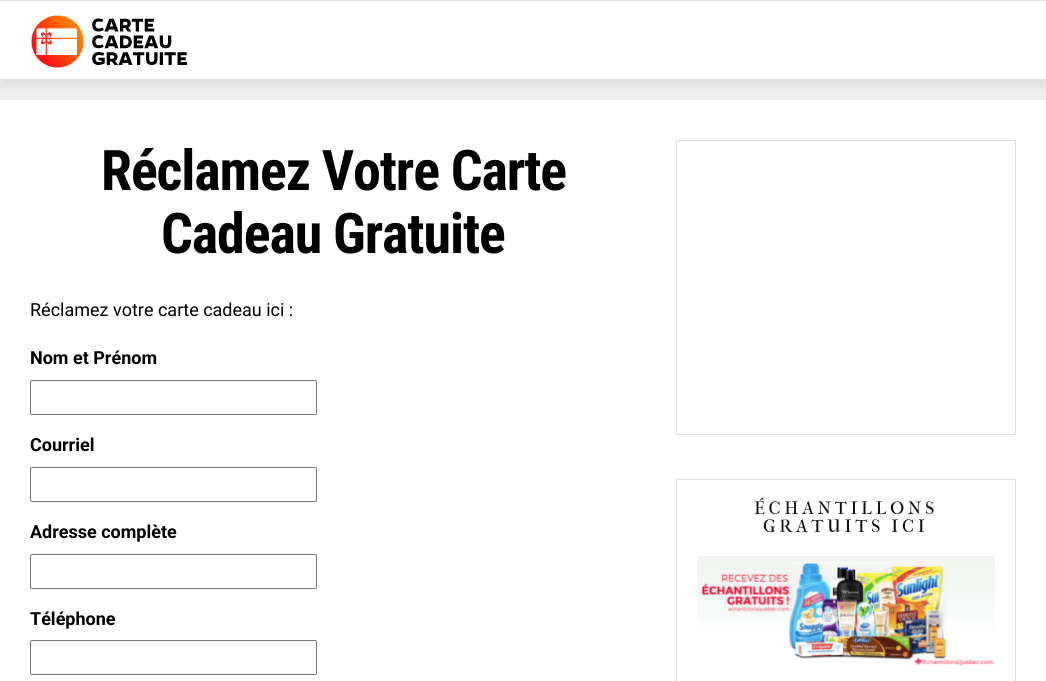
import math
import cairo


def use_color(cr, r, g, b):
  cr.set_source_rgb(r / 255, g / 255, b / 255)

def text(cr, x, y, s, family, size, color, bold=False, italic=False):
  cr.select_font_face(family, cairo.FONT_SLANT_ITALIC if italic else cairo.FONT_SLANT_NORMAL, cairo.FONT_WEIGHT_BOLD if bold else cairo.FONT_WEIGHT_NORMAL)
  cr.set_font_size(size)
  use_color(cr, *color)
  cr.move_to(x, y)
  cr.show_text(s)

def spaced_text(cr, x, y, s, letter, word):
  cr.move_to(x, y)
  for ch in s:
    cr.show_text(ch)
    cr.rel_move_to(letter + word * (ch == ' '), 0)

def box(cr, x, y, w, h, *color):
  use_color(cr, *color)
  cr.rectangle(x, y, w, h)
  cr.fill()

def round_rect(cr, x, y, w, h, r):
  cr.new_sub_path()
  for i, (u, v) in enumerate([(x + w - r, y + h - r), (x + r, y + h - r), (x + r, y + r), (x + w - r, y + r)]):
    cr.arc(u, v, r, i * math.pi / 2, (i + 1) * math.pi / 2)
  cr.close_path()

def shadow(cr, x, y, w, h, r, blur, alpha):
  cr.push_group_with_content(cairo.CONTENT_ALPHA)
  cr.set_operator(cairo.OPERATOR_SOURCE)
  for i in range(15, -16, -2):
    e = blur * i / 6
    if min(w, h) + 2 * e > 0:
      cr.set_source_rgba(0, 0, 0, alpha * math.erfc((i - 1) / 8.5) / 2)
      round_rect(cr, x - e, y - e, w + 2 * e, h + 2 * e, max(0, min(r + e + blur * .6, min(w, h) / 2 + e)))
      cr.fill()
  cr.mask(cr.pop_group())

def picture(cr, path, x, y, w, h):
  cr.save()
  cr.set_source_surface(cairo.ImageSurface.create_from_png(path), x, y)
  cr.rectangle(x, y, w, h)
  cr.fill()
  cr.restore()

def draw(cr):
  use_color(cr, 240, 240, 240)
  cr.paint()
  box(cr, 0, 100, 1046, 581, 255, 255, 255)
  use_color(cr, 21, 21, 30)
  shadow(cr, 0, 8, 1046, 80, 0, 8, 0.08)
  box(cr, 0, 1, 1046, 78, 255, 255, 255)
  box(cr, 0, 0, 1046, 1, 221, 221, 221)
  box(cr, 0, 79, 1046, 1, 221, 221, 221)
  picture(cr, "img_01.png", 31, 15, 156, 53)
  round_rect(cr, 30.5, 380.5, 286, 34, 1.5)
  use_color(cr, 118, 118, 118)
  cr.set_line_width(1)
  cr.stroke()
  round_rect(cr, 30.5, 467.5, 286, 34, 1.5)
  cr.stroke()
  round_rect(cr, 30.5, 554.5, 286, 34, 1.5)
  cr.stroke()
  round_rect(cr, 30.5, 640.5, 286, 34, 1.5)
  cr.stroke()
  cr.rectangle(676.5, 140.5, 339, 294)
  use_color(cr, 221, 221, 221)
  cr.stroke()
  cr.rectangle(676.5, 479.5, 339, 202)
  cr.stroke()
  picture(cr, "img_02.png", 697, 556, 298, 110)
  cr.select_font_face("Roboto Condensed", cairo.FONT_SLANT_NORMAL, cairo.FONT_WEIGHT_BOLD)
  cr.set_font_size(56)
  use_color(cr, 0, 0, 0)
  spaced_text(cr, 101, 190, "Réclamez Votre Carte", -1.1, 0)
  spaced_text(cr, 161, 253, "Cadeau Gratuite", -1.1, 0)
  text(cr, 30, 316, "Réclamez votre carte cadeau ici :", "Roboto", 18, (0, 0, 0))
  text(cr, 30, 364, "Nom et Prénom", "Roboto", 18, (0, 0, 0), bold=True)
  text(cr, 30, 451, "Courriel", "Roboto", 18, (0, 0, 0), bold=True)
  text(cr, 30, 538, "Adresse complète", "Roboto", 18, (0, 0, 0), bold=True)
  text(cr, 30, 625, "Téléphone", "Roboto", 18, (0, 0, 0), bold=True)
  cr.select_font_face("IM FELL French Canon")
  use_color(cr, 17, 17, 17)
  spaced_text(cr, 754, 514, "ÉCHANTILLONS", 3.6, 0)
  spaced_text(cr, 763, 532, "GRATUITS ICI", 3.6, 0)


surface = cairo.ImageSurface(cairo.FORMAT_RGB24, 1046, 681)
cr = cairo.Context(surface)
options = cairo.FontOptions()
options.set_hint_metrics(cairo.HINT_METRICS_OFF)
options.set_hint_style(cairo.HINT_STYLE_NONE)
cr.set_font_options(options)
cr.set_miter_limit(4)
draw(cr)
surface.write_to_png("out.png")
